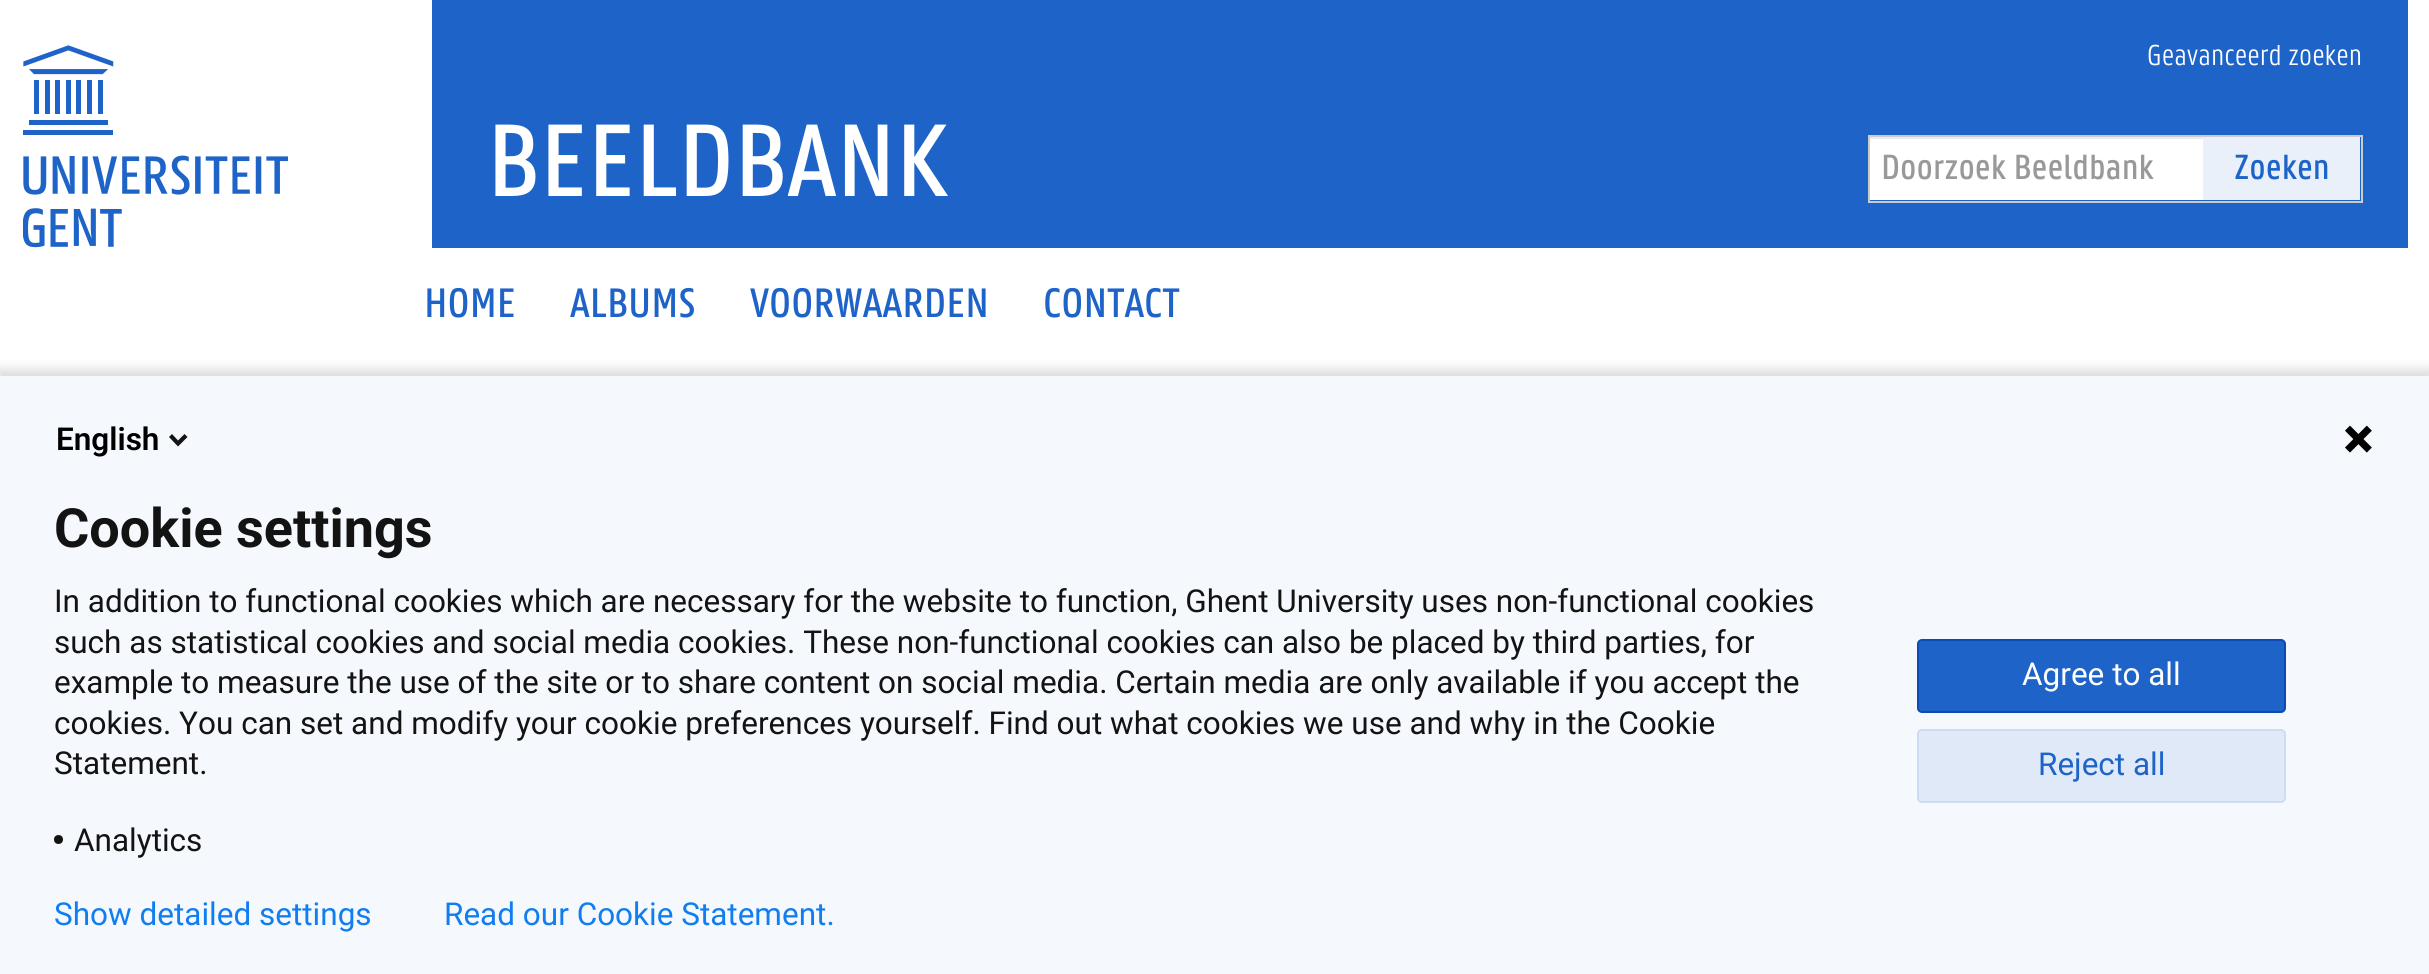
import math
import cairo


def use_color(cr, r, g, b):
  cr.set_source_rgb(r / 255, g / 255, b / 255)

def text(cr, x, y, s, family, size, color, bold=False, italic=False):
  cr.select_font_face(family, cairo.FONT_SLANT_ITALIC if italic else cairo.FONT_SLANT_NORMAL, cairo.FONT_WEIGHT_BOLD if bold else cairo.FONT_WEIGHT_NORMAL)
  cr.set_font_size(size)
  use_color(cr, *color)
  cr.move_to(x, y)
  cr.show_text(s)

def box(cr, x, y, w, h, *color):
  use_color(cr, *color)
  cr.rectangle(x, y, w, h)
  cr.fill()

def round_rect(cr, x, y, w, h, r):
  cr.new_sub_path()
  for i, (u, v) in enumerate([(x + w - r, y + h - r), (x + r, y + h - r), (x + r, y + r), (x + w - r, y + r)]):
    cr.arc(u, v, r, i * math.pi / 2, (i + 1) * math.pi / 2)
  cr.close_path()

def shadow(cr, x, y, w, h, r, blur, alpha):
  cr.push_group_with_content(cairo.CONTENT_ALPHA)
  cr.set_operator(cairo.OPERATOR_SOURCE)
  for i in range(15, -16, -2):
    e = blur * i / 6
    if min(w, h) + 2 * e > 0:
      cr.set_source_rgba(0, 0, 0, alpha * math.erfc((i - 1) / 8.5) / 2)
      round_rect(cr, x - e, y - e, w + 2 * e, h + 2 * e, max(0, min(r + e + blur * .6, min(w, h) / 2 + e)))
      cr.fill()
  cr.mask(cr.pop_group())

def picture(cr, path, x, y, w, h):
  cr.save()
  cr.set_source_surface(cairo.ImageSurface.create_from_png(path), x, y)
  cr.rectangle(x, y, w, h)
  cr.fill()
  cr.restore()

def draw(cr):
  use_color(cr, 255, 255, 255)
  cr.paint()
  picture(cr, "img_01.png", 23, 45, 265, 203)
  box(cr, 432, 0, 1976, 248, 30, 100, 200)
  cr.rectangle(1869, 136, 493, 66)
  use_color(cr, 204, 204, 204)
  cr.stroke()
  box(cr, 1870, 139, 333, 61, 255, 255, 255)
  box(cr, 1870, 137, 333, 2, 236, 236, 236)
  box(cr, 2203, 137, 157, 63, 233, 240, 250)
  use_color(cr, 0, 0, 0)
  shadow(cr, -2, 369, 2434, 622, 0, 5.5, 0.14)
  box(cr, 0, 376, 2429, 598, 245, 248, 252)
  use_color(cr, 19, 19, 19)
  cr.new_path()
  cr.move_to(178, 440.5)
  cr.line_to(184.5, 434)
  cr.line_to(187.5, 437)
  cr.line_to(178, 446.5)
  cr.line_to(169, 437)
  cr.line_to(172, 434)
  cr.close_path()
  cr.fill()
  picture(cr, "img_02.png", 2345, 425, 27, 28)
  cr.arc(58.5, 839.5, 4.5, 0, 2 * math.pi)
  cr.fill()
  use_color(cr, 30, 100, 200)
  round_rect(cr, 1918, 640, 367, 72, 4)
  cr.fill_preserve()
  use_color(cr, 11, 75, 179)
  cr.stroke()
  use_color(cr, 224, 233, 247)
  round_rect(cr, 1917, 729, 369, 74, 5)
  cr.fill()
  round_rect(cr, 1918, 730, 367, 72, 4)
  cr.set_source_rgba(0.118, 0.392, 0.784, 0.1)
  cr.stroke()
  text(cr, 487, 196, "BEELDBANK", "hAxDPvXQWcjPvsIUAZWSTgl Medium", 112.5, (255, 255, 255))
  text(cr, 2147, 65, "Geavanceerd zoeken", "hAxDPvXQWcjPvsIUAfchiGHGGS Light", 31.5, (255, 255, 255))
  text(cr, 1881, 179, "Doorzoek Beeldbank", "hAxDPvXQWcjPvsIUAZWSTgl Medium", 38.25, (153, 153, 153))
  text(cr, 2234, 179, "Zoeken", "hAxDPvXQWcjPvsIUAZWSTgl Medium", 38.25, (30, 100, 200))
  text(cr, 424, 317, "HOME", "hAxDPvXQWcjPvsIUAZWSTgl Medium", 45, (30, 100, 200))
  text(cr, 570, 317, "ALBUMS", "hAxDPvXQWcjPvsIUAZWSTgl Medium", 45, (30, 100, 200))
  text(cr, 750, 317, "VOORWAARDEN", "hAxDPvXQWcjPvsIUAZWSTgl Medium", 45, (30, 100, 200))
  text(cr, 1043, 317, "CONTACT", "hAxDPvXQWcjPvsIUAZWSTgl Medium", 45, (30, 100, 200))
  text(cr, 56, 450, "English", "Roboto SemiBold", 31.5, (0, 0, 0))
  text(cr, 54, 547, "Cookie settings", "Roboto", 54, (19, 19, 19), bold=True)
  text(cr, 54, 612, "In addition to functional cookies which are necessary for the website to function, Ghent University uses non-functional cookies", "Roboto", 31.5, (19, 19, 19))
  text(cr, 54, 653, "such as statistical cookies and social media cookies. These non-functional cookies can also be placed by third parties, for", "Roboto", 31.5, (19, 19, 19))
  text(cr, 54, 693, "example to measure the use of the site or to share content on social media. Certain media are only available if you accept the", "Roboto", 31.5, (19, 19, 19))
  text(cr, 54, 734, "cookies. You can set and modify your cookie preferences yourself. Find out what cookies we use and why in the Cookie", "Roboto", 31.5, (19, 19, 19))
  text(cr, 54, 774, "Statement.", "Roboto", 31.5, (19, 19, 19))
  text(cr, 74, 851, "Analytics", "Roboto", 31.5, (19, 19, 19))
  text(cr, 2022, 685, "Agree to all", "Roboto", 31.5, (255, 255, 255))
  text(cr, 2038, 775, "Reject all", "Roboto", 31.5, (30, 100, 200))
  text(cr, 54, 925, "Show detailed settings", "Roboto", 31.5, (16, 126, 241))
  text(cr, 444, 925, "Read our Cookie Statement.", "Roboto", 31.5, (16, 126, 241))


surface = cairo.ImageSurface(cairo.FORMAT_RGB24, 2429, 974)
cr = cairo.Context(surface)
options = cairo.FontOptions()
options.set_hint_metrics(cairo.HINT_METRICS_OFF)
options.set_hint_style(cairo.HINT_STYLE_NONE)
cr.set_font_options(options)
cr.set_miter_limit(4)
draw(cr)
surface.write_to_png("out.png")
